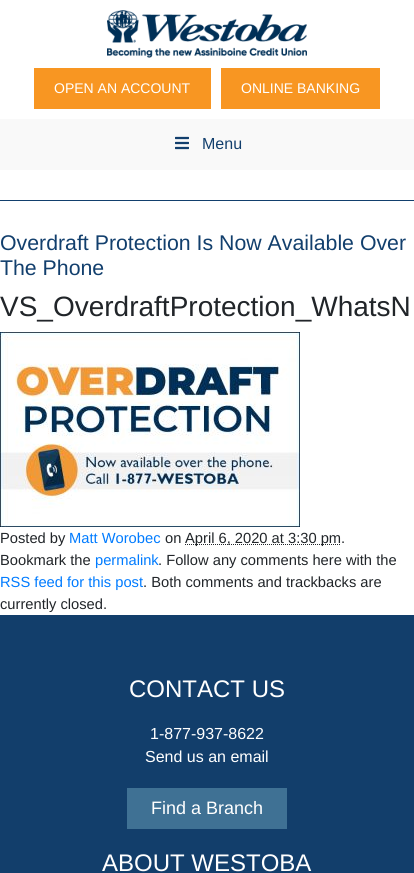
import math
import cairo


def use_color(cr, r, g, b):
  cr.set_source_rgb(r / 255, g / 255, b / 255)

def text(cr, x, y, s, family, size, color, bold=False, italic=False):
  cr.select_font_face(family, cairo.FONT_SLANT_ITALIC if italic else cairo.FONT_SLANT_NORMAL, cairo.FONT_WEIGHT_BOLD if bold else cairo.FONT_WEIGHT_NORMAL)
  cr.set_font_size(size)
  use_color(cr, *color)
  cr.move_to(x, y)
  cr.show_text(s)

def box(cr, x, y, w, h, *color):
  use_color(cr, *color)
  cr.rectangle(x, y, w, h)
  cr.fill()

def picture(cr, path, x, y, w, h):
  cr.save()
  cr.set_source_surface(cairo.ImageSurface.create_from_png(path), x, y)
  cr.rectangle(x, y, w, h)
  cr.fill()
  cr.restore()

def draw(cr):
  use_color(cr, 255, 255, 255)
  cr.paint()
  box(cr, 0, 200, 414, 1, 18, 63, 109)
  picture(cr, "img_01.png", 107, 10, 200, 48)
  box(cr, 34, 68, 177, 41, 248, 150, 34)
  box(cr, 221, 68, 159, 41, 248, 150, 34)
  box(cr, 0, 119, 414, 51, 249, 249, 249)
  picture(cr, "img_02.png", 175, 136, 14, 14)
  picture(cr, "img_03.png", 0, 332, 300, 195)
  cr.new_path()
  cr.move_to(185, 544.5)
  cr.line_to(340.5, 544.5)
  use_color(cr, 33, 37, 41)
  cr.set_line_width(1)
  cr.set_dash([1, 1])
  cr.stroke()
  box(cr, 0, 615, 414, 258, 18, 62, 107)
  box(cr, 127, 788, 160, 41, 63, 113, 148)
  text(cr, 54, 93, "OPEN AN ACCOUNT", "Liberation Sans", 14, (255, 255, 255))
  text(cr, 241, 93, "ONLINE BANKING", "Liberation Sans", 14, (255, 255, 255))
  text(cr, 202, 149, "Menu", "Liberation Sans", 16, (18, 63, 109))
  text(cr, 0, 250, "Overdraft Protection Is Now Available Over", "Liberation Sans", 21.3, (18, 63, 109))
  text(cr, 0, 275, "The Phone", "Liberation Sans", 21.3, (18, 63, 109))
  text(cr, 0, 316, "VS_OverdraftProtection_WhatsN", "Liberation Sans", 28, (33, 37, 41))
  text(cr, 0, 543, "Posted by", "Liberation Sans", 14.7, (33, 37, 41))
  text(cr, 69, 543, "Matt Worobec", "Liberation Sans", 14.7, (0, 123, 255))
  text(cr, 165, 543, "on", "Liberation Sans", 14.7, (33, 37, 41))
  text(cr, 185, 543, "April 6, 2020 at 3:30 pm.", "Liberation Sans", 14.7, (33, 37, 41))
  text(cr, 0, 565, "Bookmark the", "Liberation Sans", 14.7, (33, 37, 41))
  text(cr, 95, 565, "permalink", "Liberation Sans", 14.7, (0, 123, 255))
  text(cr, 158, 565, ". Follow any comments here with the", "Liberation Sans", 14.7, (33, 37, 41))
  text(cr, 0, 587, "RSS feed for this post", "Liberation Sans", 14.7, (0, 123, 255))
  text(cr, 143, 587, ". Both comments and trackbacks are", "Liberation Sans", 14.7, (33, 37, 41))
  text(cr, 0, 609, "currently closed.", "Liberation Sans", 14.7, (33, 37, 41))
  text(cr, 129, 697, "CONTACT US", "Liberation Sans", 24, (255, 255, 255))
  text(cr, 150, 739, "1-877-937-8622", "Liberation Sans", 16, (255, 255, 255))
  text(cr, 145, 762, "Send us an email", "Liberation Sans", 16, (255, 255, 255))
  text(cr, 151, 814, "Find a Branch", "Liberation Sans", 18, (255, 255, 255))
  text(cr, 102, 871, "ABOUT WESTOBA", "Liberation Sans", 24, (255, 255, 255))


surface = cairo.ImageSurface(cairo.FORMAT_RGB24, 414, 873)
cr = cairo.Context(surface)
options = cairo.FontOptions()
options.set_hint_metrics(cairo.HINT_METRICS_OFF)
options.set_hint_style(cairo.HINT_STYLE_NONE)
cr.set_font_options(options)
cr.set_miter_limit(4)
draw(cr)
surface.write_to_png("out.png")
